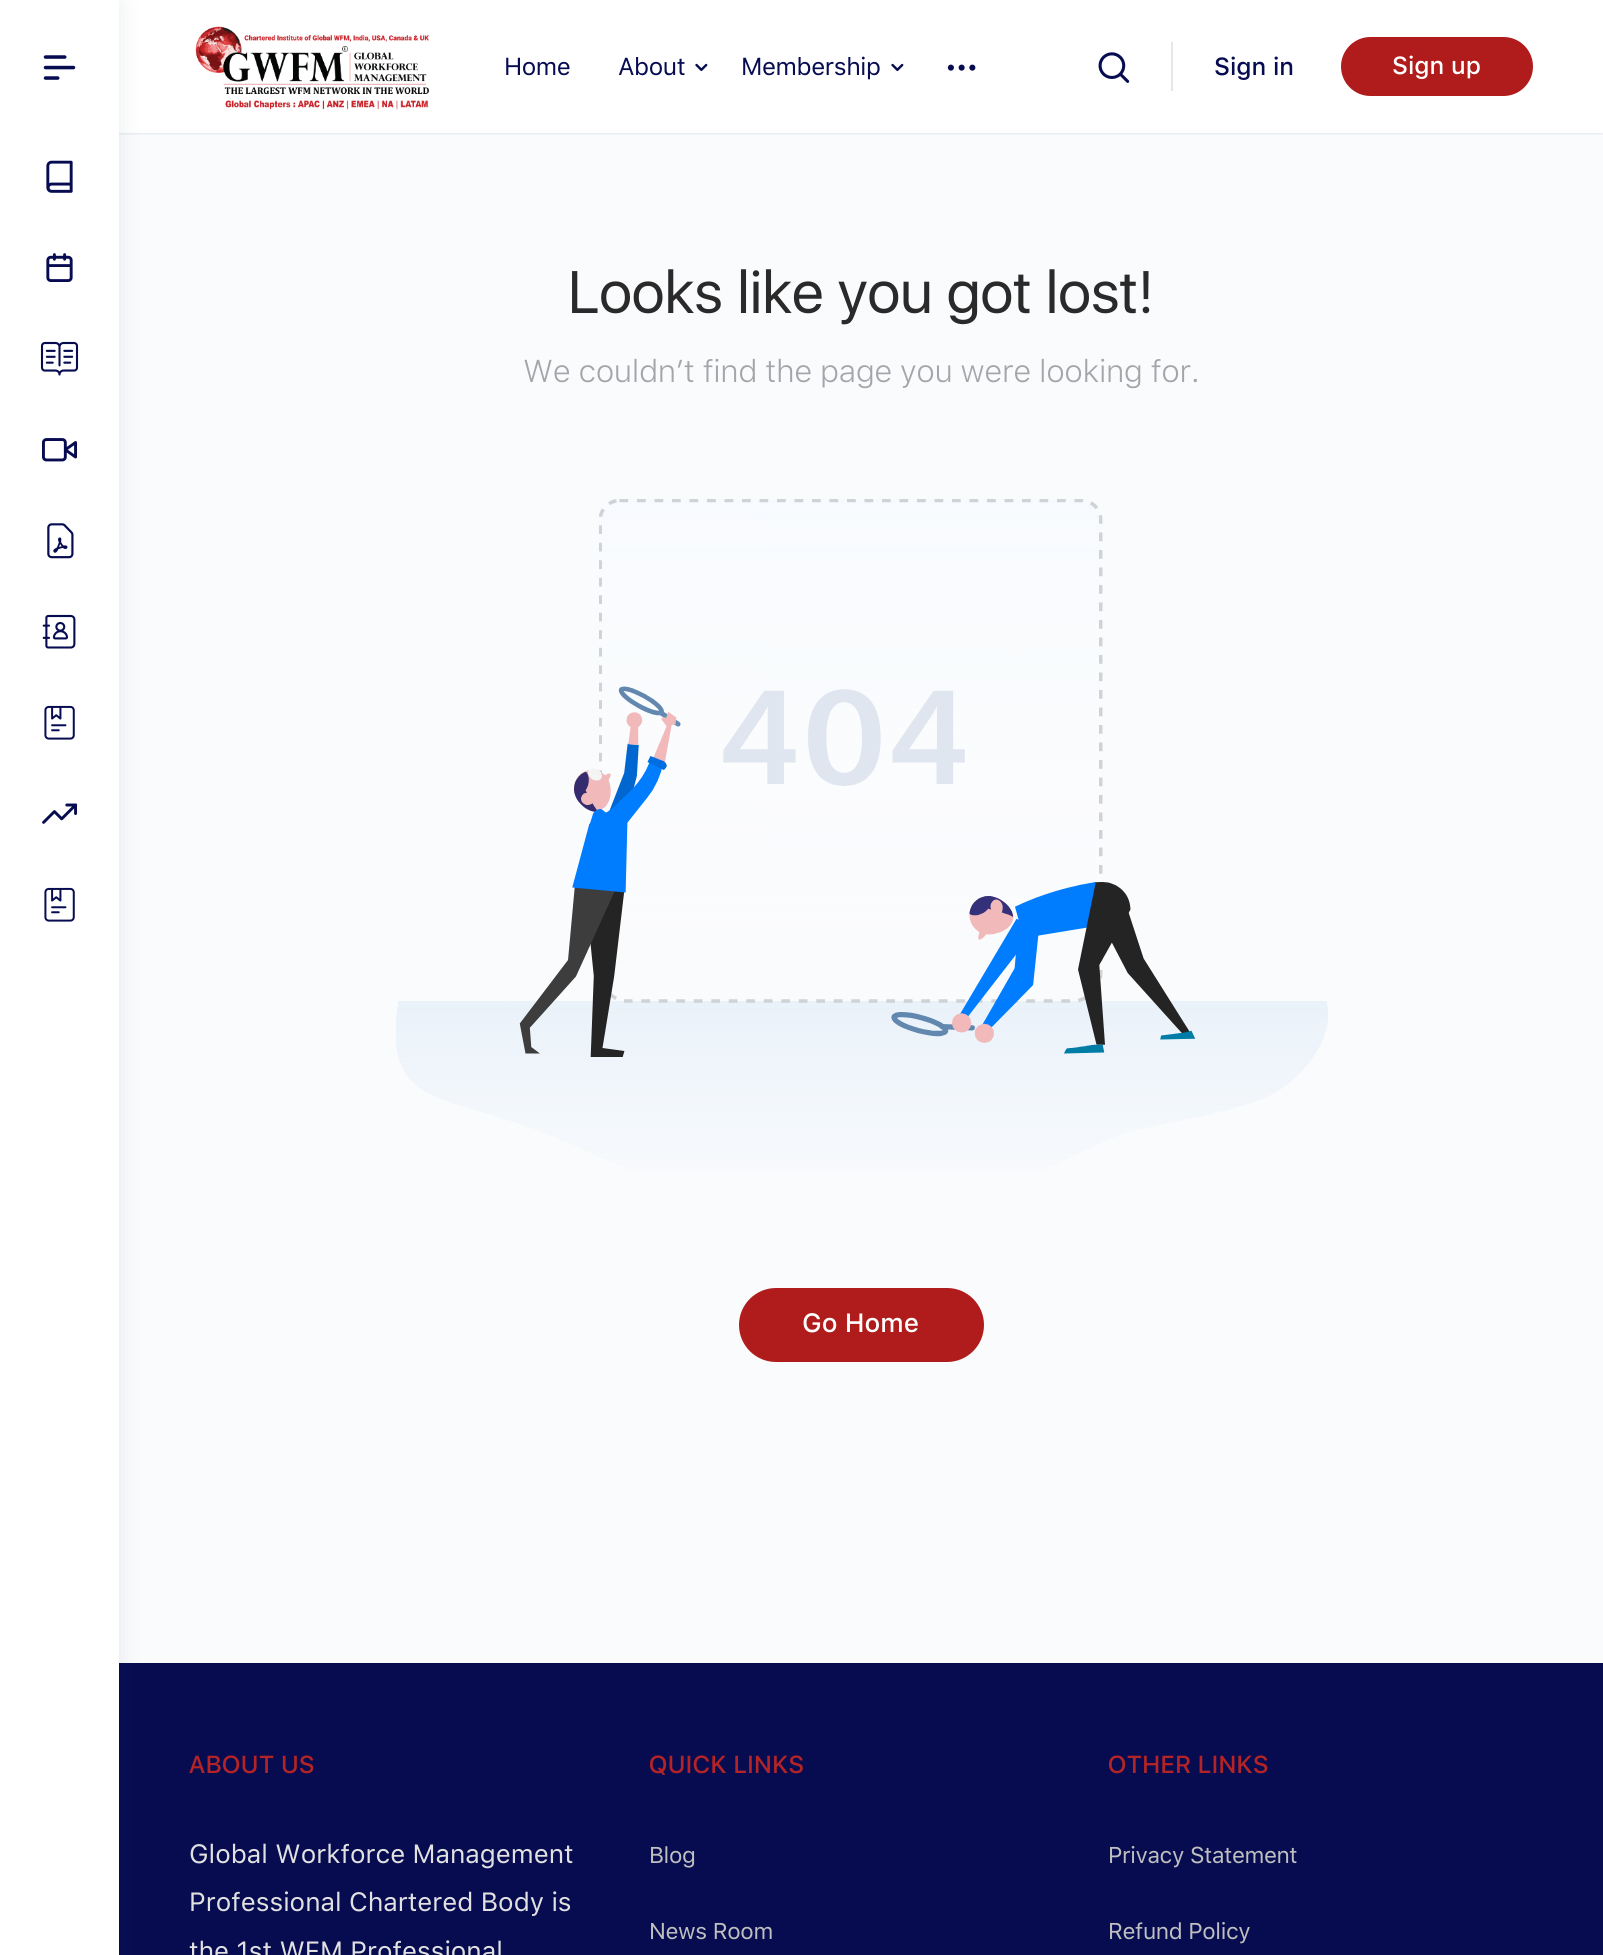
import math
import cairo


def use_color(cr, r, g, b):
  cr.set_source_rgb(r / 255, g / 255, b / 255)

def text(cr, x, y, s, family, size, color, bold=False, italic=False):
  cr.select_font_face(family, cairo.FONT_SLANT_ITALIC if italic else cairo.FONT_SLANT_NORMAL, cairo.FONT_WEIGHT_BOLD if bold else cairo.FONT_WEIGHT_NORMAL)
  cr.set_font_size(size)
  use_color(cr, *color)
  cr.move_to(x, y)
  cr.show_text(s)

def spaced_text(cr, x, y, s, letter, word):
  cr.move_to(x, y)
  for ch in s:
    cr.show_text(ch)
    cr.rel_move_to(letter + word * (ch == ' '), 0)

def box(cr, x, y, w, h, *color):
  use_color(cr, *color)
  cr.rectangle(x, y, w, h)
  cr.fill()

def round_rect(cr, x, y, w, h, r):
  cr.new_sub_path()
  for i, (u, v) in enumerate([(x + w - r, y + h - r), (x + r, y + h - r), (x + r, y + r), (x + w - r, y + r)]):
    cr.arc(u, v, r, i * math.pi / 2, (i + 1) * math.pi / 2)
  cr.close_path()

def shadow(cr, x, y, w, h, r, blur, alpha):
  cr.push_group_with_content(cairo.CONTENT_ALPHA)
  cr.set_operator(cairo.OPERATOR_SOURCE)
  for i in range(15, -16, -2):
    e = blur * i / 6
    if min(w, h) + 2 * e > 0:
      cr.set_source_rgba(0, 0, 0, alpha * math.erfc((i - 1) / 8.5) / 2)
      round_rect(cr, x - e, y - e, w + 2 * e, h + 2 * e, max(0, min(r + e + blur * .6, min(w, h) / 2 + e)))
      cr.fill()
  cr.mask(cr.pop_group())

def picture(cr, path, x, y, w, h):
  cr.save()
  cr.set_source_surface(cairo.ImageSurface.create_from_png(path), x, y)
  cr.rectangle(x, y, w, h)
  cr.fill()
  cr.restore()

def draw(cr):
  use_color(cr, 250, 251, 253)
  cr.paint()
  use_color(cr, 65, 71, 108)
  shadow(cr, 119, 0, 1484, 133, 0, 1, 0.15)
  cr.set_source_rgba(0.545, 0.553, 0.616, 0.05)
  cr.rectangle(119, 133, 1484, 2)
  cr.fill()
  box(cr, 119, 0, 1484, 133, 255, 255, 255)
  box(cr, 119, 1663, 1484, 292, 7, 12, 81)
  use_color(cr, 18, 43, 70)
  shadow(cr, 0, 5, 119, 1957, 0, 11.5, 0.1)
  box(cr, 0, 0, 119, 1955, 255, 255, 255)
  picture(cr, "img_01.png", 43, 55, 33, 25)
  picture(cr, "img_02.png", 46, 160, 27, 33)
  picture(cr, "img_03.png", 46, 253, 27, 29)
  picture(cr, "img_04.png", 40, 341, 39, 35)
  picture(cr, "img_05.png", 42, 438, 35, 24)
  picture(cr, "img_06.png", 47, 523, 27, 36)
  picture(cr, "img_07.png", 42, 614, 34, 35)
  picture(cr, "img_08.png", 44, 705, 31, 35)
  picture(cr, "img_09.png", 42, 803, 36, 21)
  picture(cr, "img_08.png", 44, 887, 31, 35)
  picture(cr, "img_10.png", 195, 26, 234, 84)
  picture(cr, "img_11.png", 695, 63, 13, 8)
  picture(cr, "img_11.png", 891, 63, 13, 8)
  picture(cr, "img_12.png", 947, 64, 29, 7)
  picture(cr, "img_13.png", 1098, 52, 32, 31)
  box(cr, 1171, 42, 2, 49, 230, 230, 230)
  use_color(cr, 176, 27, 27)
  round_rect(cr, 1341, 37, 192, 59, 29.5)
  cr.fill()
  picture(cr, "img_14.png", 396, 499, 932, 672)
  round_rect(cr, 739, 1288, 245, 74, 37)
  cr.fill()
  cr.select_font_face("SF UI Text")
  cr.set_font_size(24.5)
  use_color(cr, 7, 12, 81)
  spaced_text(cr, 504, 75, "Home", -0.4, 0)
  spaced_text(cr, 618, 75, "About", -0.4, 0)
  spaced_text(cr, 741, 75, "Membership", -0.4, 0)
  text(cr, 1214, 75, "Sign in", "SF UI Text Medium", 24.5, (7, 12, 81))
  text(cr, 1392, 74, "Sign up", "SF UI Text Medium", 24.5, (255, 255, 255))
  text(cr, 568, 313, "Looks like you got lost!", "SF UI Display", 59.5, (42, 42, 42))
  cr.select_font_face("SF UI Text Light")
  cr.set_font_size(31.5)
  use_color(cr, 163, 165, 169)
  spaced_text(cr, 523, 382, "We couldn’t find the page you were looking for.", -0.4, 0)
  text(cr, 802, 1332, "Go Home", "SF UI Text Medium", 26.25, (255, 255, 255))
  cr.select_font_face("SF UI Display Medium")
  cr.set_font_size(24.5)
  use_color(cr, 180, 35, 38)
  spaced_text(cr, 189, 1773, "ABOUT US", 0.9, 0)
  text(cr, 189, 1863, "Global Workforce Management", "SF UI Text", 26.25, (225, 225, 225))
  text(cr, 189, 1911, "Professional Chartered Body is", "SF UI Text", 26.25, (225, 225, 225))
  text(cr, 189, 1960, "the 1st WFM Professional", "SF UI Text", 26.25, (225, 225, 225))
  cr.select_font_face("SF UI Display Medium")
  cr.set_font_size(24.5)
  use_color(cr, 180, 35, 38)
  spaced_text(cr, 649, 1773, "QUICK LINKS", 0.9, 0)
  cr.select_font_face("SF UI Text")
  cr.set_font_size(22.75)
  use_color(cr, 191, 191, 191)
  spaced_text(cr, 649, 1863, "Blog", -0.4, 0)
  spaced_text(cr, 649, 1939, "News Room", -0.4, 0)
  cr.select_font_face("SF UI Display Medium")
  cr.set_font_size(24.5)
  use_color(cr, 180, 35, 38)
  spaced_text(cr, 1108, 1773, "OTHER LINKS", 0.9, 0)
  cr.select_font_face("SF UI Text")
  cr.set_font_size(22.75)
  use_color(cr, 191, 191, 191)
  spaced_text(cr, 1108, 1863, "Privacy Statement", -0.4, 0)
  spaced_text(cr, 1108, 1939, "Refund Policy", -0.4, 0)


surface = cairo.ImageSurface(cairo.FORMAT_RGB24, 1603, 1955)
cr = cairo.Context(surface)
options = cairo.FontOptions()
options.set_hint_metrics(cairo.HINT_METRICS_OFF)
options.set_hint_style(cairo.HINT_STYLE_NONE)
cr.set_font_options(options)
cr.set_miter_limit(4)
draw(cr)
surface.write_to_png("out.png")
